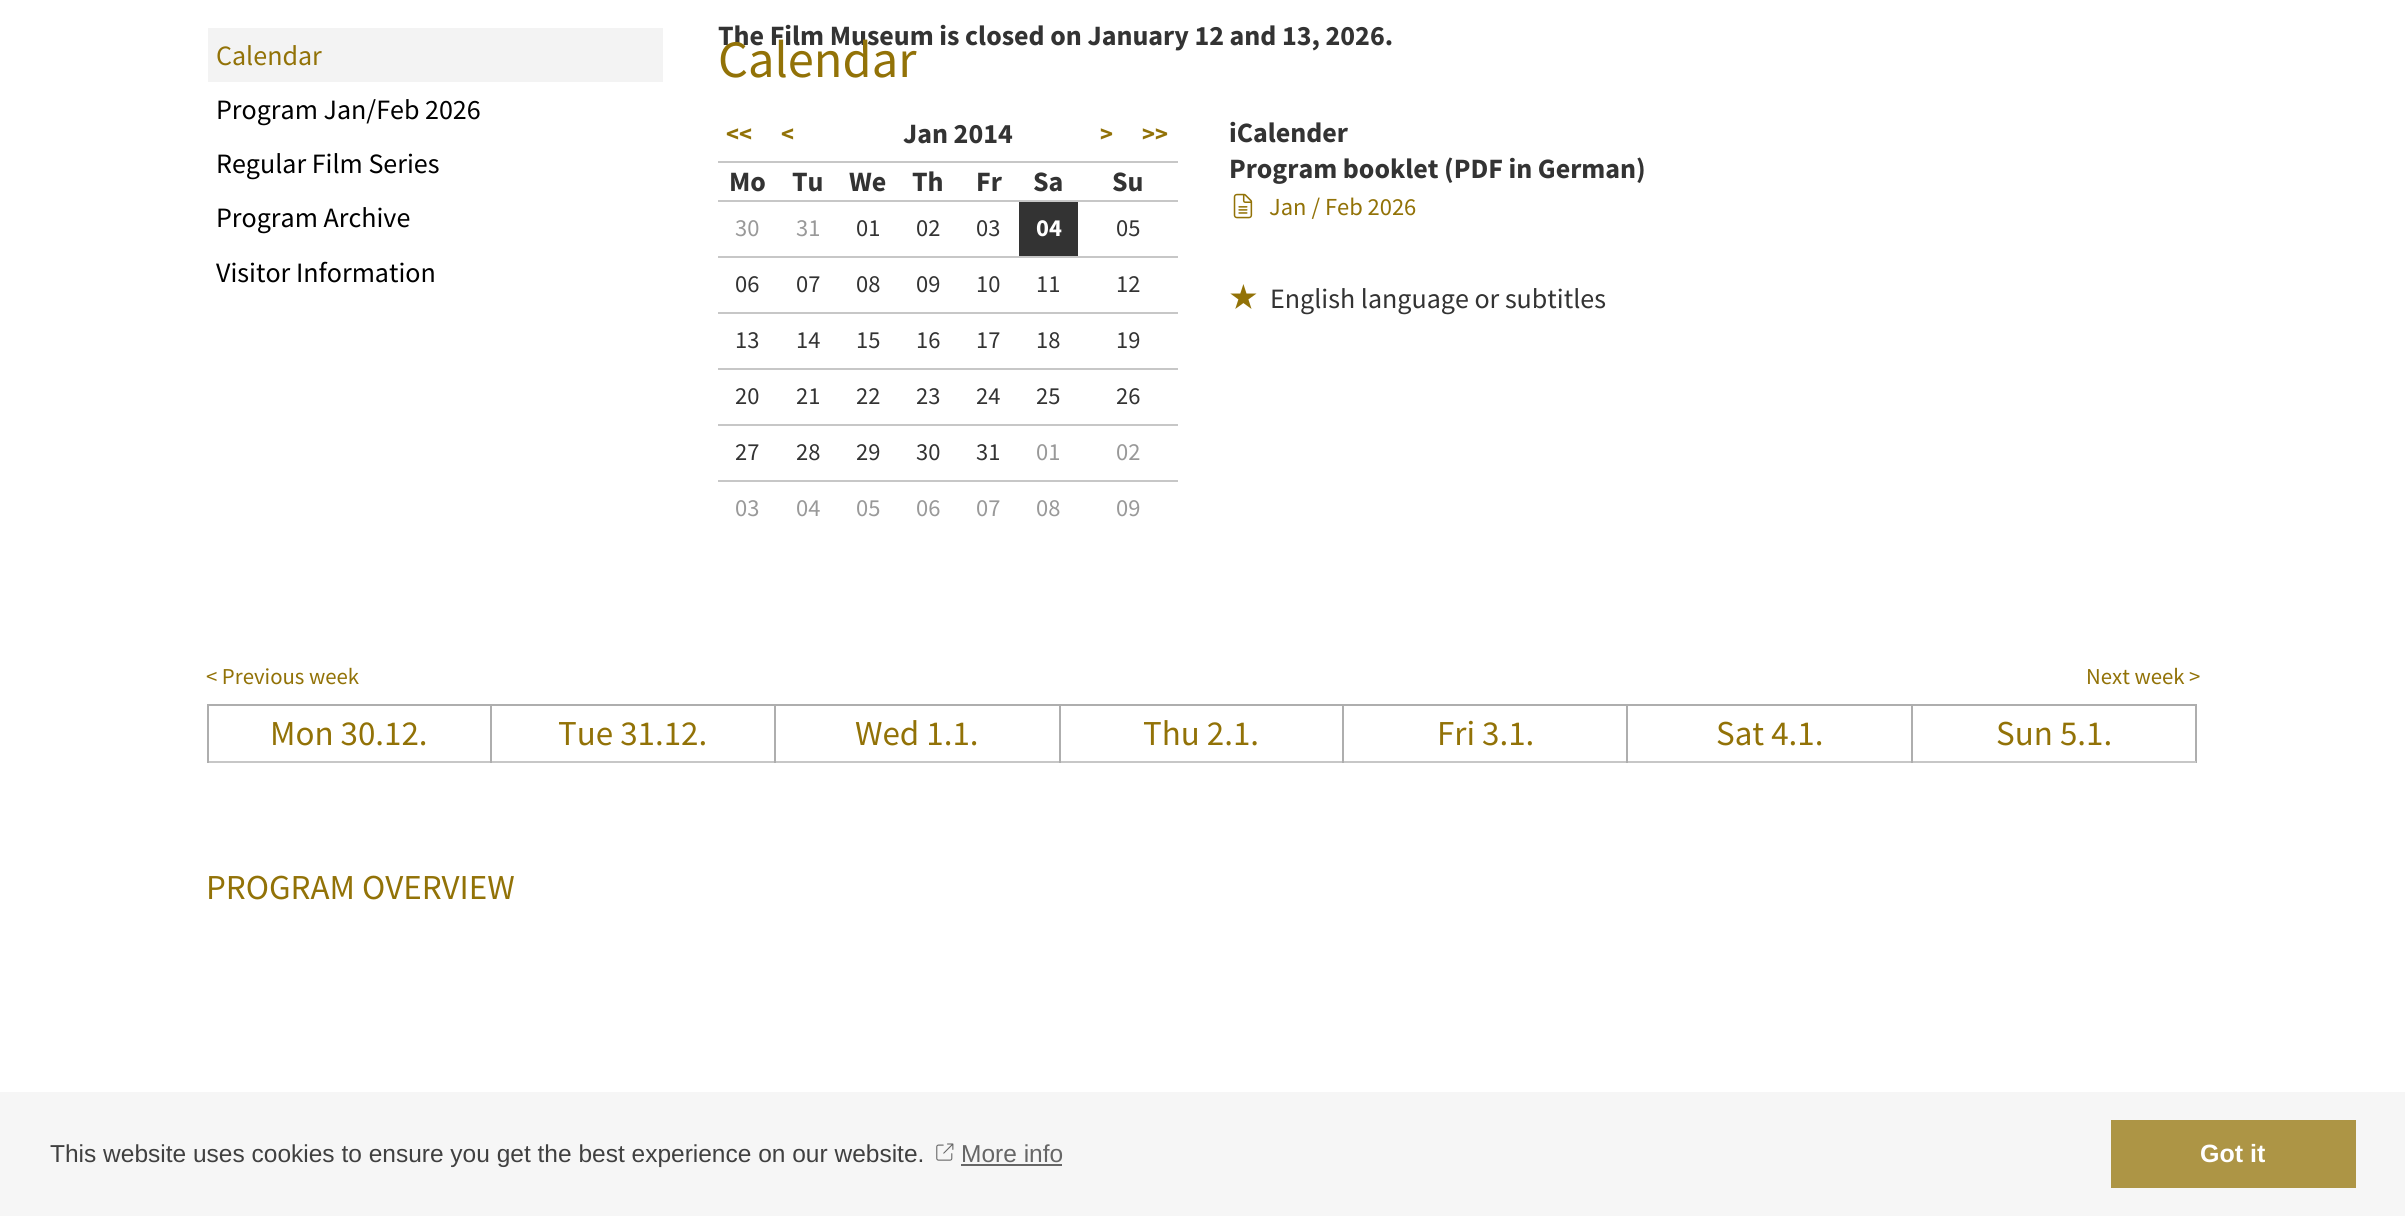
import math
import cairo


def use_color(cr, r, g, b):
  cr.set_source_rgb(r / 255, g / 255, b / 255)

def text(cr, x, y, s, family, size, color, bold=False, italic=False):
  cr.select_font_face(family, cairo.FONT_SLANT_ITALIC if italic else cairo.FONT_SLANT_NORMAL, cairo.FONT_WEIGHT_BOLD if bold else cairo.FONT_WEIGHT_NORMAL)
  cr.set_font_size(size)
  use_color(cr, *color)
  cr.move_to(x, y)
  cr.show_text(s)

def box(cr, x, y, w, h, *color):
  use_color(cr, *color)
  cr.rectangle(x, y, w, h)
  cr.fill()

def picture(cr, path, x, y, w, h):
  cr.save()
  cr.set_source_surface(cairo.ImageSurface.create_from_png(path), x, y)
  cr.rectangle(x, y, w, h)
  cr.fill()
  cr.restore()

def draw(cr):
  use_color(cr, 255, 255, 255)
  cr.paint()
  box(cr, 718, 161, 460, 2, 199, 199, 199)
  box(cr, 718, 200, 460, 2, 199, 199, 199)
  box(cr, 718, 256, 460, 2, 199, 199, 199)
  box(cr, 1019, 202, 59, 54, 51, 51, 51)
  box(cr, 718, 312, 460, 2, 199, 199, 199)
  box(cr, 718, 368, 460, 2, 199, 199, 199)
  box(cr, 718, 424, 460, 2, 199, 199, 199)
  box(cr, 718, 480, 460, 2, 199, 199, 199)
  picture(cr, "img_01.png", 1233, 193, 20, 26)
  picture(cr, "img_02.png", 1230, 284, 27, 25)
  box(cr, 207, 704, 1989, 2, 174, 174, 174)
  box(cr, 207, 761, 1706, 2, 199, 199, 199)
  box(cr, 207, 704, 2, 59, 174, 174, 174)
  box(cr, 490, 704, 2, 59, 174, 174, 174)
  box(cr, 774, 704, 2, 59, 174, 174, 174)
  box(cr, 1059, 704, 2, 59, 174, 174, 174)
  box(cr, 1342, 704, 2, 59, 174, 174, 174)
  box(cr, 1626, 704, 2, 59, 174, 174, 174)
  box(cr, 2195, 704, 2, 59, 174, 174, 174)
  box(cr, 1911, 761, 285, 2, 199, 199, 199)
  box(cr, 1911, 704, 2, 59, 174, 174, 174)
  box(cr, 208, 28, 455, 54, 243, 243, 243)
  box(cr, 0, 1092, 2405, 124, 246, 246, 246)
  picture(cr, "img_03.png", 936, 1143, 18, 18)
  box(cr, 961, 1164, 101, 2, 102, 102, 102)
  box(cr, 2111, 1120, 245, 68, 173, 149, 69)
  text(cr, 718, 45, "The Film Museum is closed on January 12 and 13, 2026.", "Source Sans Pro", 28, (51, 51, 51), bold=True)
  text(cr, 718, 77, "Calendar", "Source Sans Pro", 52.5, (146, 114, 7))
  text(cr, 726, 142, "<<", "Source Sans Pro", 24.5, (146, 114, 7), bold=True)
  text(cr, 781, 142, "<", "Source Sans Pro", 24.5, (146, 114, 7), bold=True)
  text(cr, 903, 143, "Jan 2014", "Source Sans Pro", 28, (51, 51, 51), bold=True)
  text(cr, 1100, 142, ">", "Source Sans Pro", 24.5, (146, 114, 7), bold=True)
  text(cr, 1142, 142, ">>", "Source Sans Pro", 24.5, (146, 114, 7), bold=True)
  text(cr, 729, 191, "Mo", "Source Sans Pro", 28, (51, 51, 51), bold=True)
  text(cr, 792, 191, "Tu", "Source Sans Pro", 28, (51, 51, 51), bold=True)
  text(cr, 849, 191, "We", "Source Sans Pro", 28, (51, 51, 51), bold=True)
  text(cr, 912, 191, "Th", "Source Sans Pro", 28, (51, 51, 51), bold=True)
  text(cr, 976, 191, "Fr", "Source Sans Pro", 28, (51, 51, 51), bold=True)
  text(cr, 1033, 191, "Sa", "Source Sans Pro", 28, (51, 51, 51), bold=True)
  text(cr, 1112, 191, "Su", "Source Sans Pro", 28, (51, 51, 51), bold=True)
  text(cr, 735, 236, "30", "Source Sans Pro", 24.5, (153, 153, 153))
  text(cr, 796, 236, "31", "Source Sans Pro", 24.5, (153, 153, 153))
  text(cr, 856, 236, "01", "Source Sans Pro", 24.5, (51, 51, 51))
  text(cr, 916, 236, "02", "Source Sans Pro", 24.5, (51, 51, 51))
  text(cr, 976, 236, "03", "Source Sans Pro", 24.5, (51, 51, 51))
  text(cr, 1036, 236, "04", "Source Sans Pro", 24.5, (255, 255, 255), bold=True)
  text(cr, 1116, 236, "05", "Source Sans Pro", 24.5, (51, 51, 51))
  text(cr, 735, 292, "06", "Source Sans Pro", 24.5, (51, 51, 51))
  text(cr, 796, 292, "07", "Source Sans Pro", 24.5, (51, 51, 51))
  text(cr, 856, 292, "08", "Source Sans Pro", 24.5, (51, 51, 51))
  text(cr, 916, 292, "09", "Source Sans Pro", 24.5, (51, 51, 51))
  text(cr, 976, 292, "10", "Source Sans Pro", 24.5, (51, 51, 51))
  text(cr, 1036, 292, "11", "Source Sans Pro", 24.5, (51, 51, 51))
  text(cr, 1116, 292, "12", "Source Sans Pro", 24.5, (51, 51, 51))
  text(cr, 735, 348, "13", "Source Sans Pro", 24.5, (51, 51, 51))
  text(cr, 796, 348, "14", "Source Sans Pro", 24.5, (51, 51, 51))
  text(cr, 856, 348, "15", "Source Sans Pro", 24.5, (51, 51, 51))
  text(cr, 916, 348, "16", "Source Sans Pro", 24.5, (51, 51, 51))
  text(cr, 976, 348, "17", "Source Sans Pro", 24.5, (51, 51, 51))
  text(cr, 1036, 348, "18", "Source Sans Pro", 24.5, (51, 51, 51))
  text(cr, 1116, 348, "19", "Source Sans Pro", 24.5, (51, 51, 51))
  text(cr, 735, 404, "20", "Source Sans Pro", 24.5, (51, 51, 51))
  text(cr, 796, 404, "21", "Source Sans Pro", 24.5, (51, 51, 51))
  text(cr, 856, 404, "22", "Source Sans Pro", 24.5, (51, 51, 51))
  text(cr, 916, 404, "23", "Source Sans Pro", 24.5, (51, 51, 51))
  text(cr, 976, 404, "24", "Source Sans Pro", 24.5, (51, 51, 51))
  text(cr, 1036, 404, "25", "Source Sans Pro", 24.5, (51, 51, 51))
  text(cr, 1116, 404, "26", "Source Sans Pro", 24.5, (51, 51, 51))
  text(cr, 735, 460, "27", "Source Sans Pro", 24.5, (51, 51, 51))
  text(cr, 796, 460, "28", "Source Sans Pro", 24.5, (51, 51, 51))
  text(cr, 856, 460, "29", "Source Sans Pro", 24.5, (51, 51, 51))
  text(cr, 916, 460, "30", "Source Sans Pro", 24.5, (51, 51, 51))
  text(cr, 976, 460, "31", "Source Sans Pro", 24.5, (51, 51, 51))
  text(cr, 1036, 460, "01", "Source Sans Pro", 24.5, (153, 153, 153))
  text(cr, 1116, 460, "02", "Source Sans Pro", 24.5, (153, 153, 153))
  text(cr, 735, 516, "03", "Source Sans Pro", 24.5, (153, 153, 153))
  text(cr, 796, 516, "04", "Source Sans Pro", 24.5, (153, 153, 153))
  text(cr, 856, 516, "05", "Source Sans Pro", 24.5, (153, 153, 153))
  text(cr, 916, 516, "06", "Source Sans Pro", 24.5, (153, 153, 153))
  text(cr, 976, 516, "07", "Source Sans Pro", 24.5, (153, 153, 153))
  text(cr, 1036, 516, "08", "Source Sans Pro", 24.5, (153, 153, 153))
  text(cr, 1116, 516, "09", "Source Sans Pro", 24.5, (153, 153, 153))
  text(cr, 1229, 142, "iCalender", "Source Sans Pro", 28, (51, 51, 51), bold=True)
  text(cr, 1229, 178, "Program booklet (PDF in German)", "Source Sans Pro", 28, (51, 51, 51), bold=True)
  text(cr, 1269, 215, "Jan / Feb 2026", "Source Sans Pro", 24.5, (146, 114, 7))
  text(cr, 1270, 308, "English language or subtitles", "Source Sans Pro", 28, (51, 51, 51))
  text(cr, 206, 684, "< Previous week", "Source Sans Pro", 22.75, (146, 114, 7))
  text(cr, 2086, 684, "Next week >", "Source Sans Pro", 22.75, (146, 114, 7))
  text(cr, 270, 745, "Mon 30.12.", "Source Sans Pro", 35, (146, 114, 7))
  text(cr, 558, 745, "Tue 31.12.", "Source Sans Pro", 35, (146, 114, 7))
  text(cr, 855, 745, "Wed 1.1.", "Source Sans Pro", 35, (146, 114, 7))
  text(cr, 1143, 745, "Thu 2.1.", "Source Sans Pro", 35, (146, 114, 7))
  text(cr, 1437, 745, "Fri 3.1.", "Source Sans Pro", 35, (146, 114, 7))
  text(cr, 1716, 745, "Sat 4.1.", "Source Sans Pro", 35, (146, 114, 7))
  text(cr, 1996, 745, "Sun 5.1.", "Source Sans Pro", 35, (146, 114, 7))
  text(cr, 206, 899, "PROGRAM OVERVIEW", "Source Sans Pro", 35, (146, 114, 7))
  text(cr, 216, 65, "Calendar", "Source Sans Pro", 28, (146, 114, 7))
  text(cr, 216, 119, "Program Jan/Feb 2026", "Source Sans Pro", 28, (0, 0, 0))
  text(cr, 216, 173, "Regular Film Series", "Source Sans Pro", 28, (0, 0, 0))
  text(cr, 216, 227, "Program Archive", "Source Sans Pro", 28, (0, 0, 0))
  text(cr, 216, 282, "Visitor Information", "Source Sans Pro", 28, (0, 0, 0))
  text(cr, 50, 1162, "This website uses cookies to ensure you get the best experience on our website.", "Liberation Sans", 24.5, (64, 64, 64))
  text(cr, 961, 1162, "More info", "Liberation Sans", 24.5, (102, 102, 102))
  text(cr, 2200, 1162, "Got it", "Liberation Sans", 25, (255, 255, 255), bold=True)


surface = cairo.ImageSurface(cairo.FORMAT_RGB24, 2405, 1216)
cr = cairo.Context(surface)
options = cairo.FontOptions()
options.set_hint_metrics(cairo.HINT_METRICS_OFF)
options.set_hint_style(cairo.HINT_STYLE_NONE)
cr.set_font_options(options)
cr.set_miter_limit(4)
draw(cr)
surface.write_to_png("out.png")
